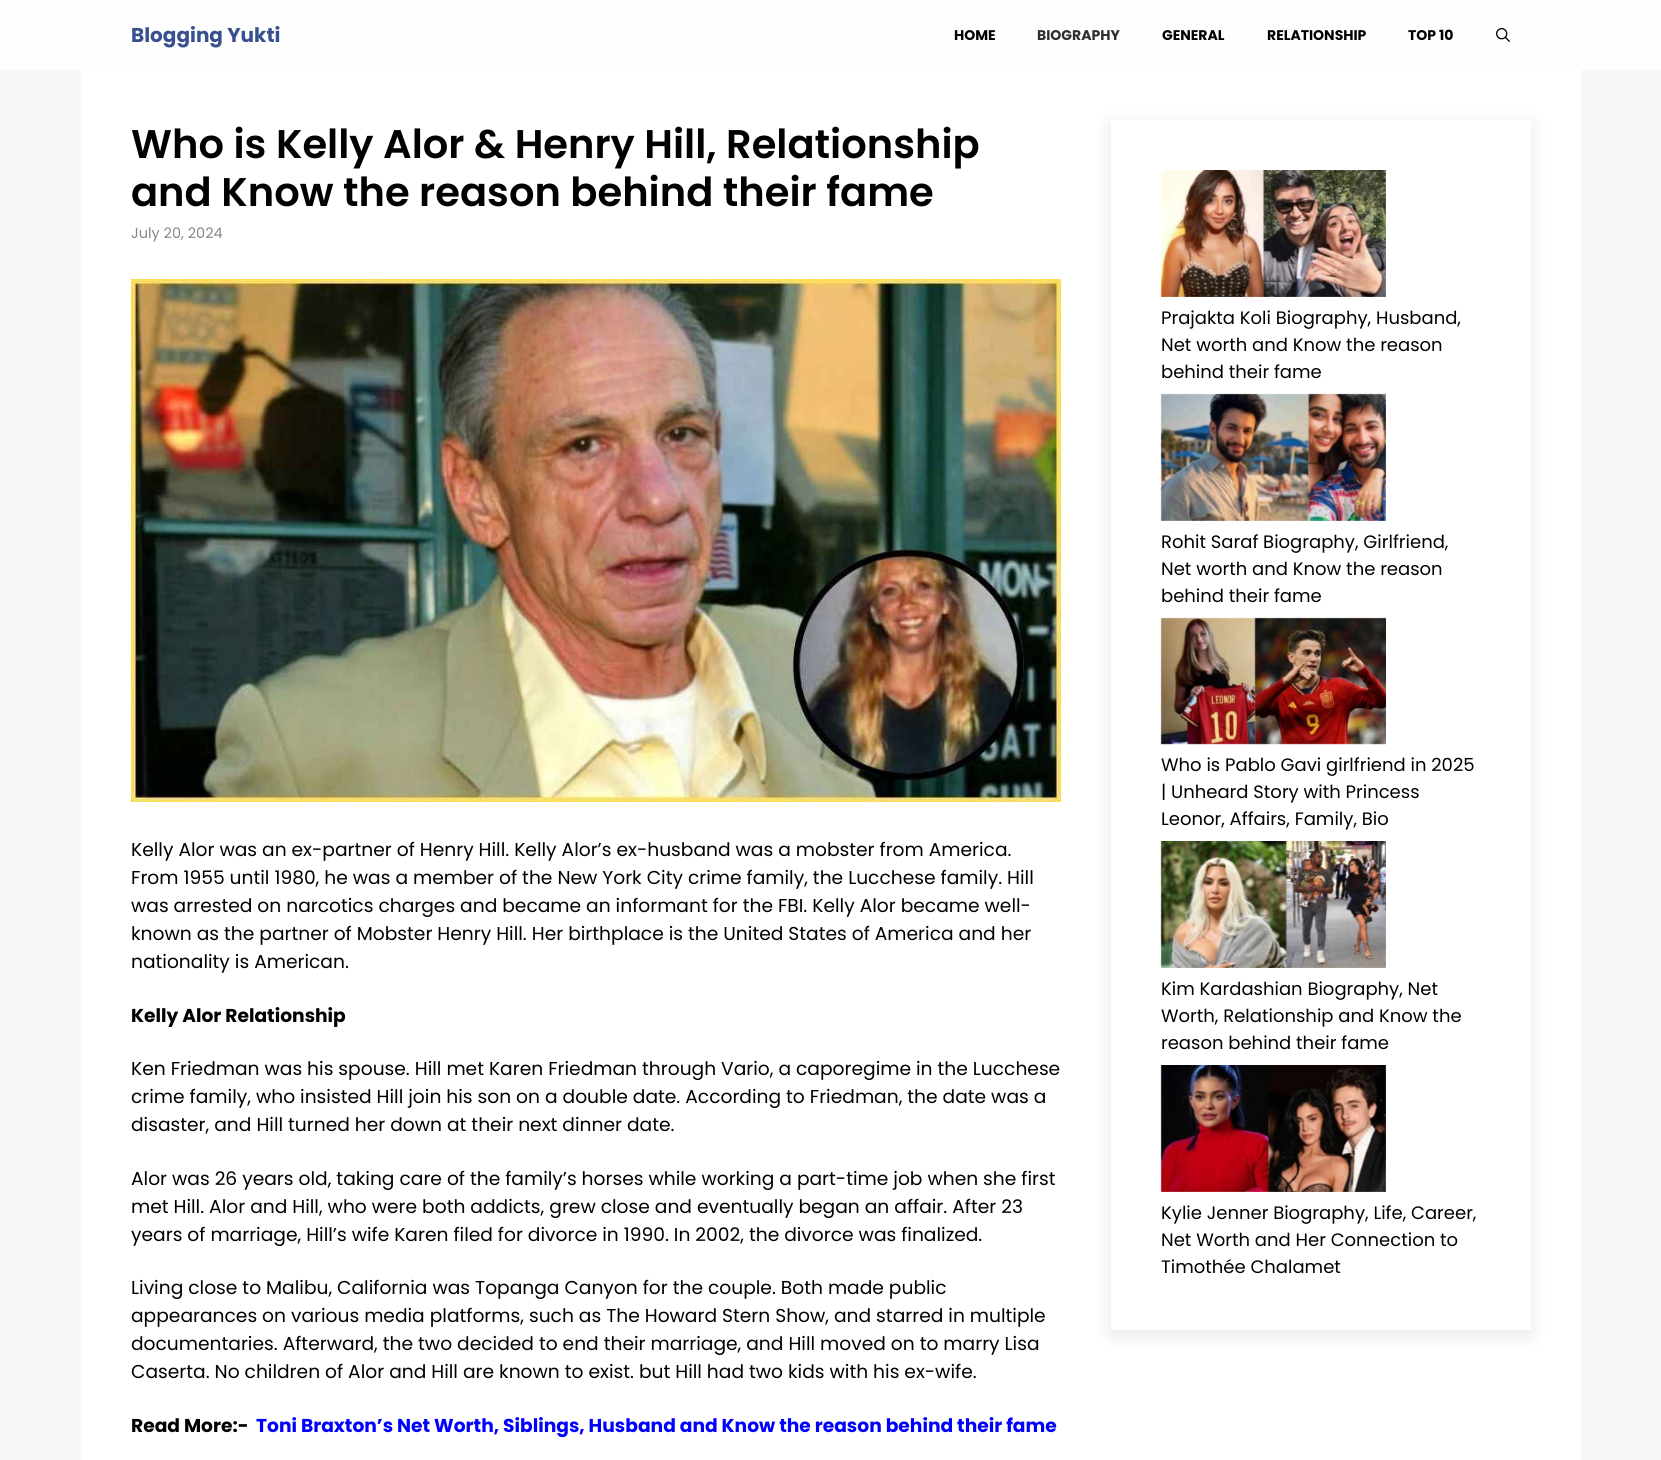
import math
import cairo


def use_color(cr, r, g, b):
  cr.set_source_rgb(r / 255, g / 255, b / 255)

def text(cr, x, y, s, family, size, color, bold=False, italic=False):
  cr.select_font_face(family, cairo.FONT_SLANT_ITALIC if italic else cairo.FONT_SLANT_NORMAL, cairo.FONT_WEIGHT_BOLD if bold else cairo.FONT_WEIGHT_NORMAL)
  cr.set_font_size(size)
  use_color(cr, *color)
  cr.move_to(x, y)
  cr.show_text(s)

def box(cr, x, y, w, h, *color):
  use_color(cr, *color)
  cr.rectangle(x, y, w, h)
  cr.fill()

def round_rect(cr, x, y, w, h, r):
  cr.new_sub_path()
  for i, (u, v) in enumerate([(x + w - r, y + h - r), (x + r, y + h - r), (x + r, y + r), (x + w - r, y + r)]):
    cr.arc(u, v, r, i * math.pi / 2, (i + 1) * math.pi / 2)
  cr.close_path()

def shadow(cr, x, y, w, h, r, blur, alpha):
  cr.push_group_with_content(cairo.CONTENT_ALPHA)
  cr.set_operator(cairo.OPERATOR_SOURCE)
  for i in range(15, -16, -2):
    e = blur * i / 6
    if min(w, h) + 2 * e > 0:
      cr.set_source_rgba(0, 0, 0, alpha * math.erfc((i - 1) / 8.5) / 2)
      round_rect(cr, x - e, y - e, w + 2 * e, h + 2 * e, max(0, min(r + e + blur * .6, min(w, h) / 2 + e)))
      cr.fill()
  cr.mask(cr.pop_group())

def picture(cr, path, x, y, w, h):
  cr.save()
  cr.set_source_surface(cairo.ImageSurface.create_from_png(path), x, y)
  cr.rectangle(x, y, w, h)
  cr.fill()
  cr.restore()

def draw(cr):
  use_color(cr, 247, 248, 249)
  cr.paint()
  box(cr, 0, 0, 1661, 70, 254, 254, 254)
  picture(cr, "img_01.png", 1496, 28, 14, 14)
  box(cr, 81, 70, 1500, 1390, 255, 255, 255)
  picture(cr, "img_02.png", 131, 279, 930, 523)
  cr.save()
  cr.set_fill_rule(cairo.FILL_RULE_EVEN_ODD)
  cr.new_path()
  cr.move_to(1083, 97)
  cr.line_to(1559, 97)
  cr.line_to(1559, 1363)
  cr.line_to(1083, 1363)
  cr.close_path()
  cr.move_to(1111, 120)
  cr.line_to(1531, 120)
  cr.line_to(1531, 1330)
  cr.line_to(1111, 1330)
  cr.close_path()
  cr.clip()
  use_color(cr, 2, 4, 7)
  shadow(cr, 1111, 125, 420, 1210, 0, 9, 0.1)
  cr.restore()
  picture(cr, "img_03.png", 1160, 170, 226, 127)
  picture(cr, "img_04.png", 1160, 393, 226, 128)
  picture(cr, "img_05.png", 1160, 617, 226, 128)
  picture(cr, "img_06.png", 1160, 841, 226, 127)
  picture(cr, "img_07.png", 1160, 1065, 226, 127)
  text(cr, 131, 42, "Blogging Yukti", "Poppins", 20, (56, 80, 141), bold=True)
  text(cr, 954, 40, "HOME", "Poppins", 14, (0, 0, 0), bold=True)
  text(cr, 1037, 40, "BIOGRAPHY", "Poppins", 14, (46, 45, 45), bold=True)
  text(cr, 1162, 40, "GENERAL", "Poppins", 14, (0, 0, 0), bold=True)
  text(cr, 1267, 40, "RELATIONSHIP", "Poppins", 14, (0, 0, 0), bold=True)
  text(cr, 1408, 40, "TOP 10", "Poppins", 14, (0, 0, 0), bold=True)
  text(cr, 131, 158, "Who is Kelly Alor & Henry Hill, Relationship", "Poppins SemiBold", 40, (0, 0, 0))
  text(cr, 131, 206, "and Know the reason behind their fame", "Poppins SemiBold", 40, (0, 0, 0))
  text(cr, 131, 238, "July 20, 2024", "Poppins", 14.5, (135, 135, 135))
  text(cr, 131, 856, "Kelly Alor was an ex-partner of Henry Hill. Kelly Alor’s ex-husband was a mobster from America.", "Poppins", 18.65, (0, 0, 0))
  text(cr, 131, 884, "From 1955 until 1980, he was a member of the New York City crime family, the Lucchese family. Hill", "Poppins", 18.65, (0, 0, 0))
  text(cr, 131, 912, "was arrested on narcotics charges and became an informant for the FBI. Kelly Alor became well-", "Poppins", 18.65, (0, 0, 0))
  text(cr, 131, 940, "known as the partner of Mobster Henry Hill. Her birthplace is the United States of America and her", "Poppins", 18.65, (0, 0, 0))
  text(cr, 131, 968, "nationality is American.", "Poppins", 18.65, (0, 0, 0))
  text(cr, 131, 1022, "Kelly Alor Relationship", "Poppins", 18.65, (0, 0, 0), bold=True)
  text(cr, 131, 1075, "Ken Friedman was his spouse. Hill met Karen Friedman through Vario, a caporegime in the Lucchese", "Poppins", 18.65, (0, 0, 0))
  text(cr, 131, 1103, "crime family, who insisted Hill join his son on a double date. According to Friedman, the date was a", "Poppins", 18.65, (0, 0, 0))
  text(cr, 131, 1131, "disaster, and Hill turned her down at their next dinner date.", "Poppins", 18.65, (0, 0, 0))
  text(cr, 131, 1185, "Alor was 26 years old, taking care of the family’s horses while working a part-time job when she first", "Poppins", 18.65, (0, 0, 0))
  text(cr, 131, 1213, "met Hill. Alor and Hill, who were both addicts, grew close and eventually began an affair. After 23", "Poppins", 18.65, (0, 0, 0))
  text(cr, 131, 1241, "years of marriage, Hill’s wife Karen filed for divorce in 1990. In 2002, the divorce was finalized.", "Poppins", 18.65, (0, 0, 0))
  text(cr, 131, 1294, "Living close to Malibu, California was Topanga Canyon for the couple. Both made public", "Poppins", 18.65, (0, 0, 0))
  text(cr, 131, 1322, "appearances on various media platforms, such as The Howard Stern Show, and starred in multiple", "Poppins", 18.65, (0, 0, 0))
  text(cr, 131, 1350, "documentaries. Afterward, the two decided to end their marriage, and Hill moved on to marry Lisa", "Poppins", 18.65, (0, 0, 0))
  text(cr, 131, 1378, "Caserta. No children of Alor and Hill are known to exist. but Hill had two kids with his ex-wife.", "Poppins", 18.65, (0, 0, 0))
  text(cr, 131, 1432, "Read More:-", "Poppins", 18.65, (0, 0, 0), bold=True)
  text(cr, 256, 1432, "Toni Braxton’s Net Worth, Siblings, Husband and Know the reason behind their fame", "Poppins", 18.65, (0, 0, 255), bold=True)
  text(cr, 1161, 324, "Prajakta Koli Biography, Husband,", "Poppins", 18, (0, 0, 0))
  text(cr, 1161, 351, "Net worth and Know the reason", "Poppins", 18, (0, 0, 0))
  text(cr, 1161, 378, "behind their fame", "Poppins", 18, (0, 0, 0))
  text(cr, 1161, 548, "Rohit Saraf Biography, Girlfriend,", "Poppins", 18, (0, 0, 0))
  text(cr, 1161, 575, "Net worth and Know the reason", "Poppins", 18, (0, 0, 0))
  text(cr, 1161, 602, "behind their fame", "Poppins", 18, (0, 0, 0))
  text(cr, 1161, 771, "Who is Pablo Gavi girlfriend in 2025", "Poppins", 18, (0, 0, 0))
  text(cr, 1161, 798, "| Unheard Story with Princess", "Poppins", 18, (0, 0, 0))
  text(cr, 1161, 825, "Leonor, Affairs, Family, Bio", "Poppins", 18, (0, 0, 0))
  text(cr, 1161, 995, "Kim Kardashian Biography, Net", "Poppins", 18, (0, 0, 0))
  text(cr, 1161, 1022, "Worth, Relationship and Know the", "Poppins", 18, (0, 0, 0))
  text(cr, 1161, 1049, "reason behind their fame", "Poppins", 18, (0, 0, 0))
  text(cr, 1161, 1219, "Kylie Jenner Biography, Life, Career,", "Poppins", 18, (0, 0, 0))
  text(cr, 1161, 1246, "Net Worth and Her Connection to", "Poppins", 18, (0, 0, 0))
  text(cr, 1161, 1273, "Timothée Chalamet", "Poppins", 18, (0, 0, 0))


surface = cairo.ImageSurface(cairo.FORMAT_RGB24, 1661, 1460)
cr = cairo.Context(surface)
options = cairo.FontOptions()
options.set_hint_metrics(cairo.HINT_METRICS_OFF)
options.set_hint_style(cairo.HINT_STYLE_NONE)
cr.set_font_options(options)
cr.set_miter_limit(4)
draw(cr)
surface.write_to_png("out.png")
